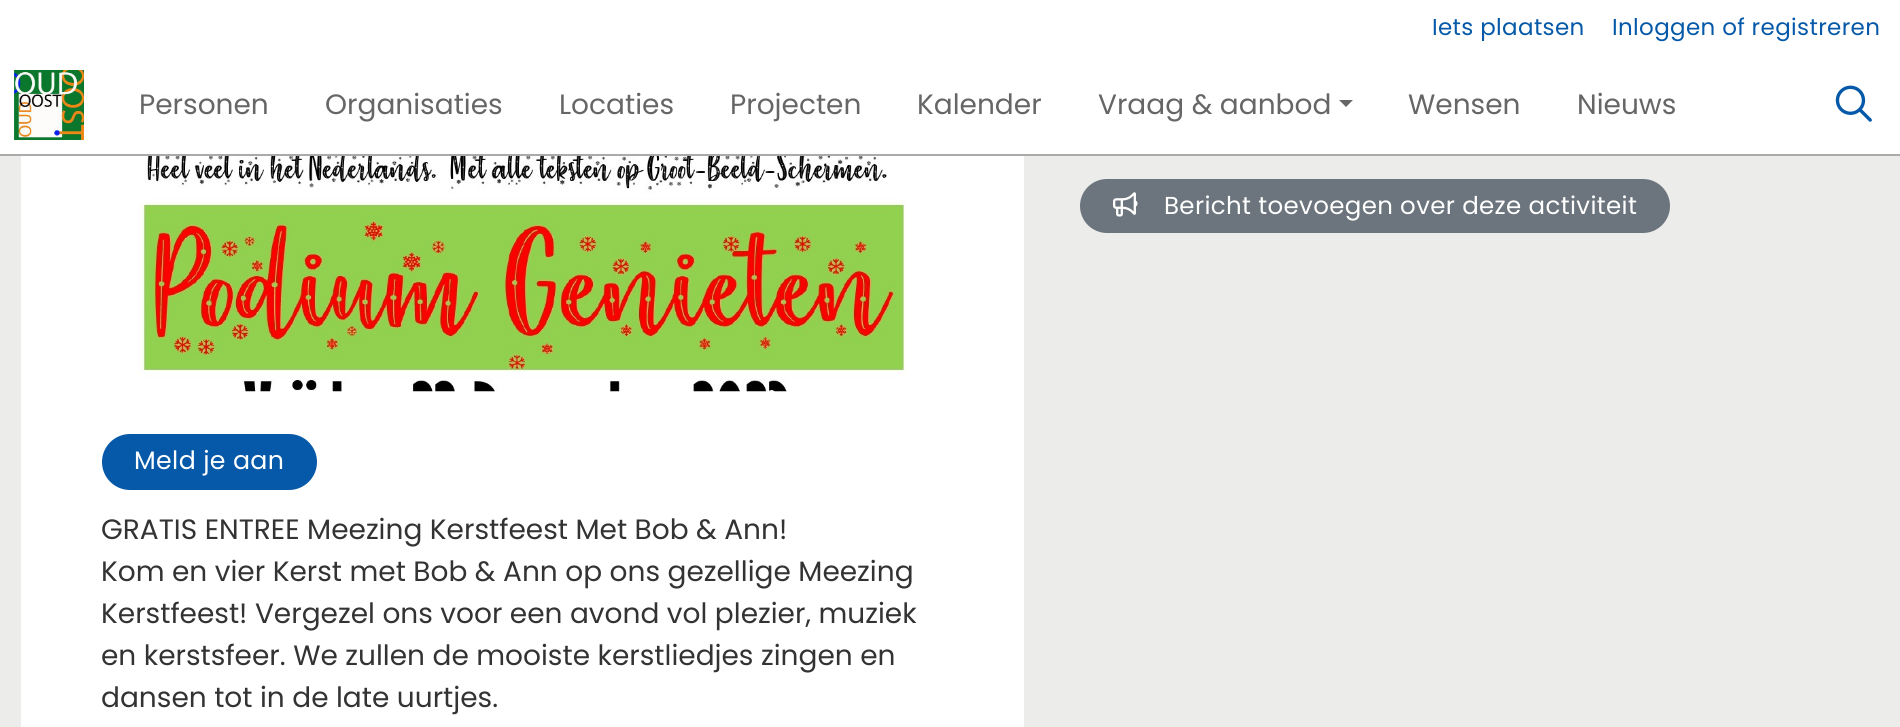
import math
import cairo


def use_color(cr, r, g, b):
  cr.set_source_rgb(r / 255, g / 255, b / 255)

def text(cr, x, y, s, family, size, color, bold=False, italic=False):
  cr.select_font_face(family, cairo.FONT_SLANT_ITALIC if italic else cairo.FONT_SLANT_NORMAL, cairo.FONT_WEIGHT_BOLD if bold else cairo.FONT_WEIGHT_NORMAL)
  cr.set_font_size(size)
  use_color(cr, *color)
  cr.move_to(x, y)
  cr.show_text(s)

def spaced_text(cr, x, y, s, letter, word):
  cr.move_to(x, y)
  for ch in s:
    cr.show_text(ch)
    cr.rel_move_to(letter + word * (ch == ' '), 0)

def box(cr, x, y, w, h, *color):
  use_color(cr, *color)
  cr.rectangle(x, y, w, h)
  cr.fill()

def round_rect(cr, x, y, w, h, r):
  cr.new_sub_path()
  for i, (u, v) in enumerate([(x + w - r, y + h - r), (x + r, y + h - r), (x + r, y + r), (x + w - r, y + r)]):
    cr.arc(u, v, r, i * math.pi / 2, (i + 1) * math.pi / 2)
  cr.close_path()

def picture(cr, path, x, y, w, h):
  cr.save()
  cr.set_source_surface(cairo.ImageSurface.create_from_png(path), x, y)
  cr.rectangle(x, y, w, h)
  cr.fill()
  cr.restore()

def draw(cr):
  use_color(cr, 236, 236, 235)
  cr.paint()
  box(cr, 0, 0, 1900, 154, 255, 255, 255)
  box(cr, 0, 154, 1900, 2, 170, 170, 170)
  picture(cr, "img_01.png", 14, 70, 70, 70)
  use_color(cr, 102, 102, 102)
  cr.new_path()
  cr.move_to(1339, 100)
  cr.line_to(1353, 100)
  cr.line_to(1346, 107)
  cr.close_path()
  cr.fill()
  picture(cr, "img_02.png", 1835, 85, 37, 37)
  use_color(cr, 108, 117, 125)
  round_rect(cr, 1081, 180, 588, 52, 26)
  cr.fill_preserve()
  cr.stroke()
  picture(cr, "img_03.png", 1113, 192, 25, 25)
  box(cr, 21, 156, 1003, 571, 255, 255, 255)
  picture(cr, "img_04.png", 137, 156, 769, 236)
  use_color(cr, 5, 89, 168)
  round_rect(cr, 103, 435, 213, 54, 27)
  cr.fill_preserve()
  cr.stroke()
  cr.select_font_face("Poppins")
  cr.set_font_size(23)
  spaced_text(cr, 1432, 35, "Iets plaatsen", 0.35, 0)
  spaced_text(cr, 1612, 35, "Inloggen of registreren", 0.35, 0)
  text(cr, 139, 114, "Personen", "Poppins", 28, (102, 102, 102))
  text(cr, 325, 114, "Organisaties", "Poppins", 28, (102, 102, 102))
  text(cr, 559, 114, "Locaties", "Poppins", 28, (102, 102, 102))
  text(cr, 730, 114, "Projecten", "Poppins", 28, (102, 102, 102))
  text(cr, 917, 114, "Kalender", "Poppins", 28, (102, 102, 102))
  text(cr, 1098, 114, "Vraag & aanbod", "Poppins", 28, (102, 102, 102))
  text(cr, 1408, 114, "Wensen", "Poppins", 28, (102, 102, 102))
  text(cr, 1577, 114, "Nieuws", "Poppins", 28, (102, 102, 102))
  cr.set_font_size(24.5)
  use_color(cr, 255, 255, 255)
  spaced_text(cr, 1164, 214, "Bericht toevoegen over deze activiteit", 0.35, 0)
  cr.set_font_size(25.25)
  spaced_text(cr, 134, 469, "Meld je aan", 0.35, 0)
  text(cr, 101, 539, "GRATIS ENTREE Meezing Kerstfeest Met Bob & Ann!", "Poppins", 28, (51, 51, 51))
  text(cr, 101, 581, "Kom en vier Kerst met Bob & Ann op ons gezellige Meezing", "Poppins", 28, (51, 51, 51))
  text(cr, 101, 623, "Kerstfeest! Vergezel ons voor een avond vol plezier, muziek", "Poppins", 28, (51, 51, 51))
  text(cr, 101, 665, "en kerstsfeer. We zullen de mooiste kerstliedjes zingen en", "Poppins", 28, (51, 51, 51))
  text(cr, 101, 707, "dansen tot in de late uurtjes.", "Poppins", 28, (51, 51, 51))


surface = cairo.ImageSurface(cairo.FORMAT_RGB24, 1900, 727)
cr = cairo.Context(surface)
options = cairo.FontOptions()
options.set_hint_metrics(cairo.HINT_METRICS_OFF)
options.set_hint_style(cairo.HINT_STYLE_NONE)
cr.set_font_options(options)
cr.set_miter_limit(4)
draw(cr)
surface.write_to_png("out.png")
